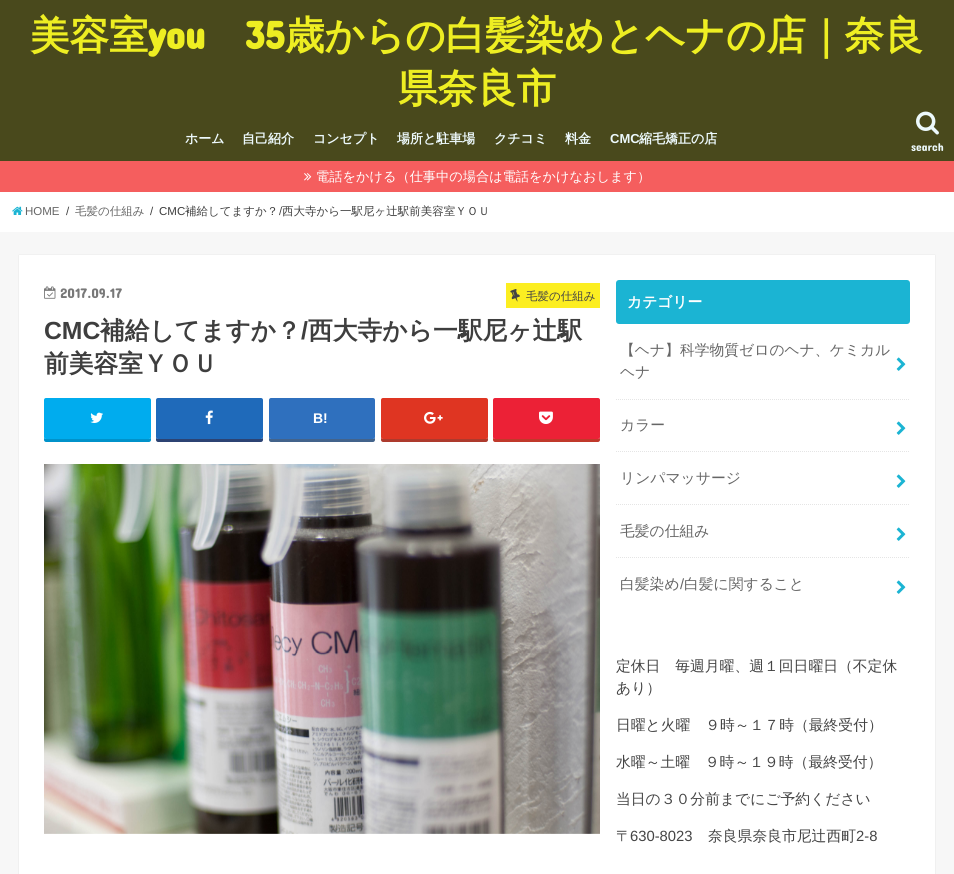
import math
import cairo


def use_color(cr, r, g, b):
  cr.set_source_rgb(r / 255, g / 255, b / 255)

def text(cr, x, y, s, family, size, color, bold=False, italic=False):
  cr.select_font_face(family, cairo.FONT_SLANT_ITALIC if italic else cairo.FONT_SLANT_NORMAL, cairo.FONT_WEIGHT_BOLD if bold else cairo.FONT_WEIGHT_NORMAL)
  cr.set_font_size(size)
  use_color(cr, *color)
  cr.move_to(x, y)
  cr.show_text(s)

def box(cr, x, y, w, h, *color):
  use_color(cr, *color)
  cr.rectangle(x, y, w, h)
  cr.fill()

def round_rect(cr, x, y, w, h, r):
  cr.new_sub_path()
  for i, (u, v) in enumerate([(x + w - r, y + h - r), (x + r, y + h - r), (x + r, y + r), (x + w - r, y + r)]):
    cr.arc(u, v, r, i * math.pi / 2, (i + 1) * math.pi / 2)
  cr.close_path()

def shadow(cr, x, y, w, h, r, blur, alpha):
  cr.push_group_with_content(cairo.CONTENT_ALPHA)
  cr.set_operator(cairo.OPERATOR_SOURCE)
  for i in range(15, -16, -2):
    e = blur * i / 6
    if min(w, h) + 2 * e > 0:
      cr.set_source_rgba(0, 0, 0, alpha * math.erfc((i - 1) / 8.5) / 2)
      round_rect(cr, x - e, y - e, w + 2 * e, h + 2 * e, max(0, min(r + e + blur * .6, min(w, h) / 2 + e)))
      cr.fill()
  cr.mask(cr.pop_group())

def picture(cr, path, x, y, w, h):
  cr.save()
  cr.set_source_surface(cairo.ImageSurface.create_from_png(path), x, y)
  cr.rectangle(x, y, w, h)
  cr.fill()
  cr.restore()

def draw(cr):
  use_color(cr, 247, 247, 247)
  cr.paint()
  box(cr, 0, 0, 954, 161, 73, 73, 28)
  picture(cr, "img_01.png", 916, 111, 23, 24)
  box(cr, 0, 161, 954, 31, 245, 94, 94)
  picture(cr, "img_02.png", 304, 173, 8, 8)
  box(cr, 0, 192, 954, 40, 255, 255, 255)
  picture(cr, "img_03.png", 12, 206, 11, 9)
  use_color(cr, 221, 221, 221)
  shadow(cr, 19, 255, 916, 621, 0, 0.5, 1)
  box(cr, 19, 255, 916, 619, 255, 255, 255)
  picture(cr, "img_04.png", 44, 286, 12, 13)
  box(cr, 506, 283, 94, 25, 252, 238, 33)
  picture(cr, "img_05.png", 510, 289, 10, 13)
  use_color(cr, 0, 146, 202)
  cr.new_path()
  cr.move_to(44, 437)
  cr.line_to(44, 440)
  cr.curve_to(44, 441, 45, 442, 46, 442)
  cr.line_to(149, 442)
  cr.curve_to(150, 442, 151, 441, 151, 440)
  cr.line_to(151, 437)
  cr.curve_to(151, 438, 150, 439, 149, 439)
  cr.line_to(46, 439)
  cr.curve_to(45, 439, 44, 438, 44, 437)
  cr.close_path()
  cr.fill()
  use_color(cr, 0, 172, 238)
  round_rect(cr, 44, 398, 107, 41, 2)
  cr.fill()
  picture(cr, "img_06.png", 90, 412, 13, 11)
  use_color(cr, 44, 67, 115)
  cr.new_path()
  cr.move_to(156, 437)
  cr.line_to(156, 440)
  cr.curve_to(156, 441, 157, 442, 158, 442)
  cr.line_to(261, 442)
  cr.curve_to(262, 442, 263, 441, 263, 440)
  cr.line_to(263, 437)
  cr.curve_to(263, 438, 262, 439, 261, 439)
  cr.line_to(158, 439)
  cr.curve_to(157, 439, 156, 438, 156, 437)
  cr.close_path()
  cr.fill()
  use_color(cr, 31, 106, 186)
  round_rect(cr, 156, 398, 107, 41, 2)
  cr.fill()
  picture(cr, "img_07.png", 205, 410, 8, 15)
  use_color(cr, 67, 99, 139)
  cr.new_path()
  cr.move_to(269, 437)
  cr.line_to(269, 440)
  cr.curve_to(269, 441, 270, 442, 271, 442)
  cr.line_to(373, 442)
  cr.curve_to(374, 442, 375, 441, 375, 440)
  cr.line_to(375, 437)
  cr.curve_to(375, 438, 374, 439, 373, 439)
  cr.line_to(271, 439)
  cr.curve_to(270, 439, 269, 438, 269, 437)
  cr.close_path()
  cr.fill()
  use_color(cr, 47, 112, 190)
  round_rect(cr, 269, 398, 106, 41, 2)
  cr.fill()
  use_color(cr, 173, 58, 45)
  cr.new_path()
  cr.move_to(381, 437)
  cr.line_to(381, 440)
  cr.curve_to(381, 441, 382, 442, 383, 442)
  cr.line_to(486, 442)
  cr.curve_to(487, 442, 488, 441, 488, 440)
  cr.line_to(488, 437)
  cr.curve_to(488, 438, 487, 439, 486, 439)
  cr.line_to(383, 439)
  cr.curve_to(382, 439, 381, 438, 381, 437)
  cr.close_path()
  cr.fill()
  use_color(cr, 223, 53, 34)
  round_rect(cr, 381, 398, 107, 41, 2)
  cr.fill()
  picture(cr, "img_08.png", 424, 411, 19, 13)
  use_color(cr, 192, 57, 43)
  cr.new_path()
  cr.move_to(493, 437)
  cr.line_to(493, 440)
  cr.curve_to(493, 441, 494, 442, 495, 442)
  cr.line_to(598, 442)
  cr.curve_to(599, 442, 600, 441, 600, 440)
  cr.line_to(600, 437)
  cr.curve_to(600, 438, 599, 439, 598, 439)
  cr.line_to(495, 439)
  cr.curve_to(494, 439, 493, 438, 493, 437)
  cr.close_path()
  cr.fill()
  use_color(cr, 236, 33, 54)
  round_rect(cr, 493, 398, 107, 41, 2)
  cr.fill()
  picture(cr, "img_09.png", 539, 411, 14, 13)
  picture(cr, "img_10.png", 44, 464, 556, 370)
  use_color(cr, 27, 180, 211)
  round_rect(cr, 616, 280, 294, 44, 3)
  cr.fill()
  cr.new_path()
  cr.move_to(616, 399.5)
  cr.line_to(910, 399.5)
  use_color(cr, 229, 229, 229)
  cr.set_line_width(1)
  cr.set_dash([1, 1])
  cr.stroke()
  picture(cr, "img_11.png", 896, 357, 10, 14)
  cr.new_path()
  cr.move_to(616, 451.5)
  cr.line_to(910, 451.5)
  cr.stroke()
  picture(cr, "img_11.png", 896, 421, 10, 14)
  cr.new_path()
  cr.move_to(616, 504.5)
  cr.line_to(910, 504.5)
  cr.stroke()
  picture(cr, "img_11.png", 896, 474, 10, 14)
  cr.new_path()
  cr.move_to(616, 557.5)
  cr.line_to(910, 557.5)
  cr.stroke()
  picture(cr, "img_11.png", 896, 527, 10, 14)
  picture(cr, "img_11.png", 896, 580, 10, 14)
  text(cr, 30, 49, "美容室", "WenQuanYi Zen Hei", 39.5, (238, 238, 34), bold=True)
  text(cr, 148, 49, "you", "Concert One", 39.5, (238, 238, 34), bold=True)
  text(cr, 245, 49, "35", "Concert One", 39.5, (238, 238, 34), bold=True)
  text(cr, 285, 49, "歳からの白髪染めとヘナの店｜奈良", "WenQuanYi Zen Hei", 39.5, (238, 238, 34), bold=True)
  text(cr, 398, 102, "県奈良市", "WenQuanYi Zen Hei", 39.5, (238, 238, 34), bold=True)
  text(cr, 185, 143, "ホーム", "WenQuanYi Zen Hei", 13, (237, 249, 252), bold=True)
  text(cr, 242, 143, "自己紹介", "WenQuanYi Zen Hei", 13, (237, 249, 252), bold=True)
  text(cr, 313, 143, "コンセプト", "WenQuanYi Zen Hei", 13, (237, 249, 252), bold=True)
  text(cr, 397, 143, "場所と駐車場", "WenQuanYi Zen Hei", 13, (237, 249, 252), bold=True)
  text(cr, 494, 143, "クチコミ", "WenQuanYi Zen Hei", 13, (237, 249, 252), bold=True)
  text(cr, 565, 143, "料金", "WenQuanYi Zen Hei", 13, (237, 249, 252), bold=True)
  text(cr, 610, 143, "CMC", "Liberation Sans", 13, (237, 249, 252), bold=True)
  text(cr, 639, 143, "縮毛矯正の店", "WenQuanYi Zen Hei", 13, (237, 249, 252), bold=True)
  text(cr, 911, 151, "search", "Concert One", 11.5, (237, 249, 252))
  text(cr, 316, 181, "電話をかける（仕事中の場合は電話をかけなおします）", "WenQuanYi Zen Hei Medium", 13.2, (255, 255, 255))
  text(cr, 25, 215, "HOME", "Liberation Sans", 11.5, (102, 102, 102))
  text(cr, 66, 215, "/", "Liberation Sans", 11.5, (62, 62, 62))
  text(cr, 75, 215, "毛髪の仕組み", "WenQuanYi Zen Hei Medium", 11.5, (102, 102, 102))
  text(cr, 150, 215, "/", "Liberation Sans", 11.5, (62, 62, 62))
  text(cr, 159, 215, "CMC", "Liberation Sans", 11.5, (62, 62, 62))
  text(cr, 185, 215, "補給してますか？", "WenQuanYi Zen Hei Medium", 11.5, (62, 62, 62))
  text(cr, 279, 215, "/", "Liberation Sans", 11.5, (62, 62, 62))
  text(cr, 282, 215, "西大寺から一駅尼ヶ辻駅前美容室ＹＯＵ", "WenQuanYi Zen Hei Medium", 11.5, (62, 62, 62))
  text(cr, 60, 298, "2017.09.17", "Concert One", 14, (120, 120, 120))
  text(cr, 526, 300, "毛髪の仕組み", "WenQuanYi Zen Hei Medium", 11.5, (68, 68, 68))
  text(cr, 44, 339, "CMC", "Liberation Sans", 24.75, (62, 62, 62), bold=True)
  text(cr, 100, 339, "補給してますか？", "WenQuanYi Zen Hei", 24.75, (62, 62, 62), bold=True)
  text(cr, 301, 339, "/", "Liberation Sans", 24.75, (62, 62, 62), bold=True)
  text(cr, 308, 339, "西大寺から一駅尼ヶ辻駅", "WenQuanYi Zen Hei", 24.75, (62, 62, 62), bold=True)
  text(cr, 44, 372, "前美容室ＹＯＵ", "WenQuanYi Zen Hei", 24.75, (62, 62, 62), bold=True)
  text(cr, 313, 423, "B!", "Liberation Sans", 14, (255, 255, 255), bold=True)
  text(cr, 627, 307, "カテゴリー", "WenQuanYi Zen Hei", 14.8, (255, 255, 255), bold=True)
  text(cr, 620, 355, "【ヘナ】科学物質ゼロのヘナ、ケミカル", "WenQuanYi Zen Hei Medium", 14.8, (102, 102, 102))
  text(cr, 620, 377, "ヘナ", "WenQuanYi Zen Hei Medium", 14.8, (102, 102, 102))
  text(cr, 620, 430, "カラー", "WenQuanYi Zen Hei Medium", 14.8, (102, 102, 102))
  text(cr, 620, 483, "リンパマッサージ", "WenQuanYi Zen Hei Medium", 14.8, (102, 102, 102))
  text(cr, 620, 536, "毛髪の仕組み", "WenQuanYi Zen Hei Medium", 14.8, (102, 102, 102))
  text(cr, 620, 589, "白髪染め", "WenQuanYi Zen Hei Medium", 14.8, (102, 102, 102))
  text(cr, 680, 589, "/", "Liberation Sans", 14.8, (102, 102, 102))
  text(cr, 684, 589, "白髪に関すること", "WenQuanYi Zen Hei Medium", 14.8, (102, 102, 102))
  text(cr, 616, 671, "定休日　毎週月曜、週１回日曜日（不定休", "WenQuanYi Zen Hei Medium", 14.8, (68, 68, 68))
  text(cr, 616, 693, "あり）", "WenQuanYi Zen Hei Medium", 14.8, (68, 68, 68))
  text(cr, 616, 730, "日曜と火曜　９時～１７時（最終受付）", "WenQuanYi Zen Hei Medium", 14.8, (68, 68, 68))
  text(cr, 616, 767, "水曜～土曜　９時～１９時（最終受付）", "WenQuanYi Zen Hei Medium", 14.8, (68, 68, 68))
  text(cr, 616, 804, "当日の３０分前までにご予約ください", "WenQuanYi Zen Hei Medium", 14.8, (68, 68, 68))
  text(cr, 616, 841, "〒", "WenQuanYi Zen Hei Medium", 14.8, (68, 68, 68))
  text(cr, 630, 841, "630-8023", "Liberation Sans", 14.8, (68, 68, 68))
  text(cr, 708, 841, "奈良県奈良市尼辻西町", "WenQuanYi Zen Hei Medium", 14.8, (68, 68, 68))
  text(cr, 856, 841, "2-8", "Liberation Sans", 14.8, (68, 68, 68))


surface = cairo.ImageSurface(cairo.FORMAT_RGB24, 954, 874)
cr = cairo.Context(surface)
options = cairo.FontOptions()
options.set_hint_metrics(cairo.HINT_METRICS_OFF)
options.set_hint_style(cairo.HINT_STYLE_NONE)
cr.set_font_options(options)
cr.set_miter_limit(4)
draw(cr)
surface.write_to_png("out.png")
